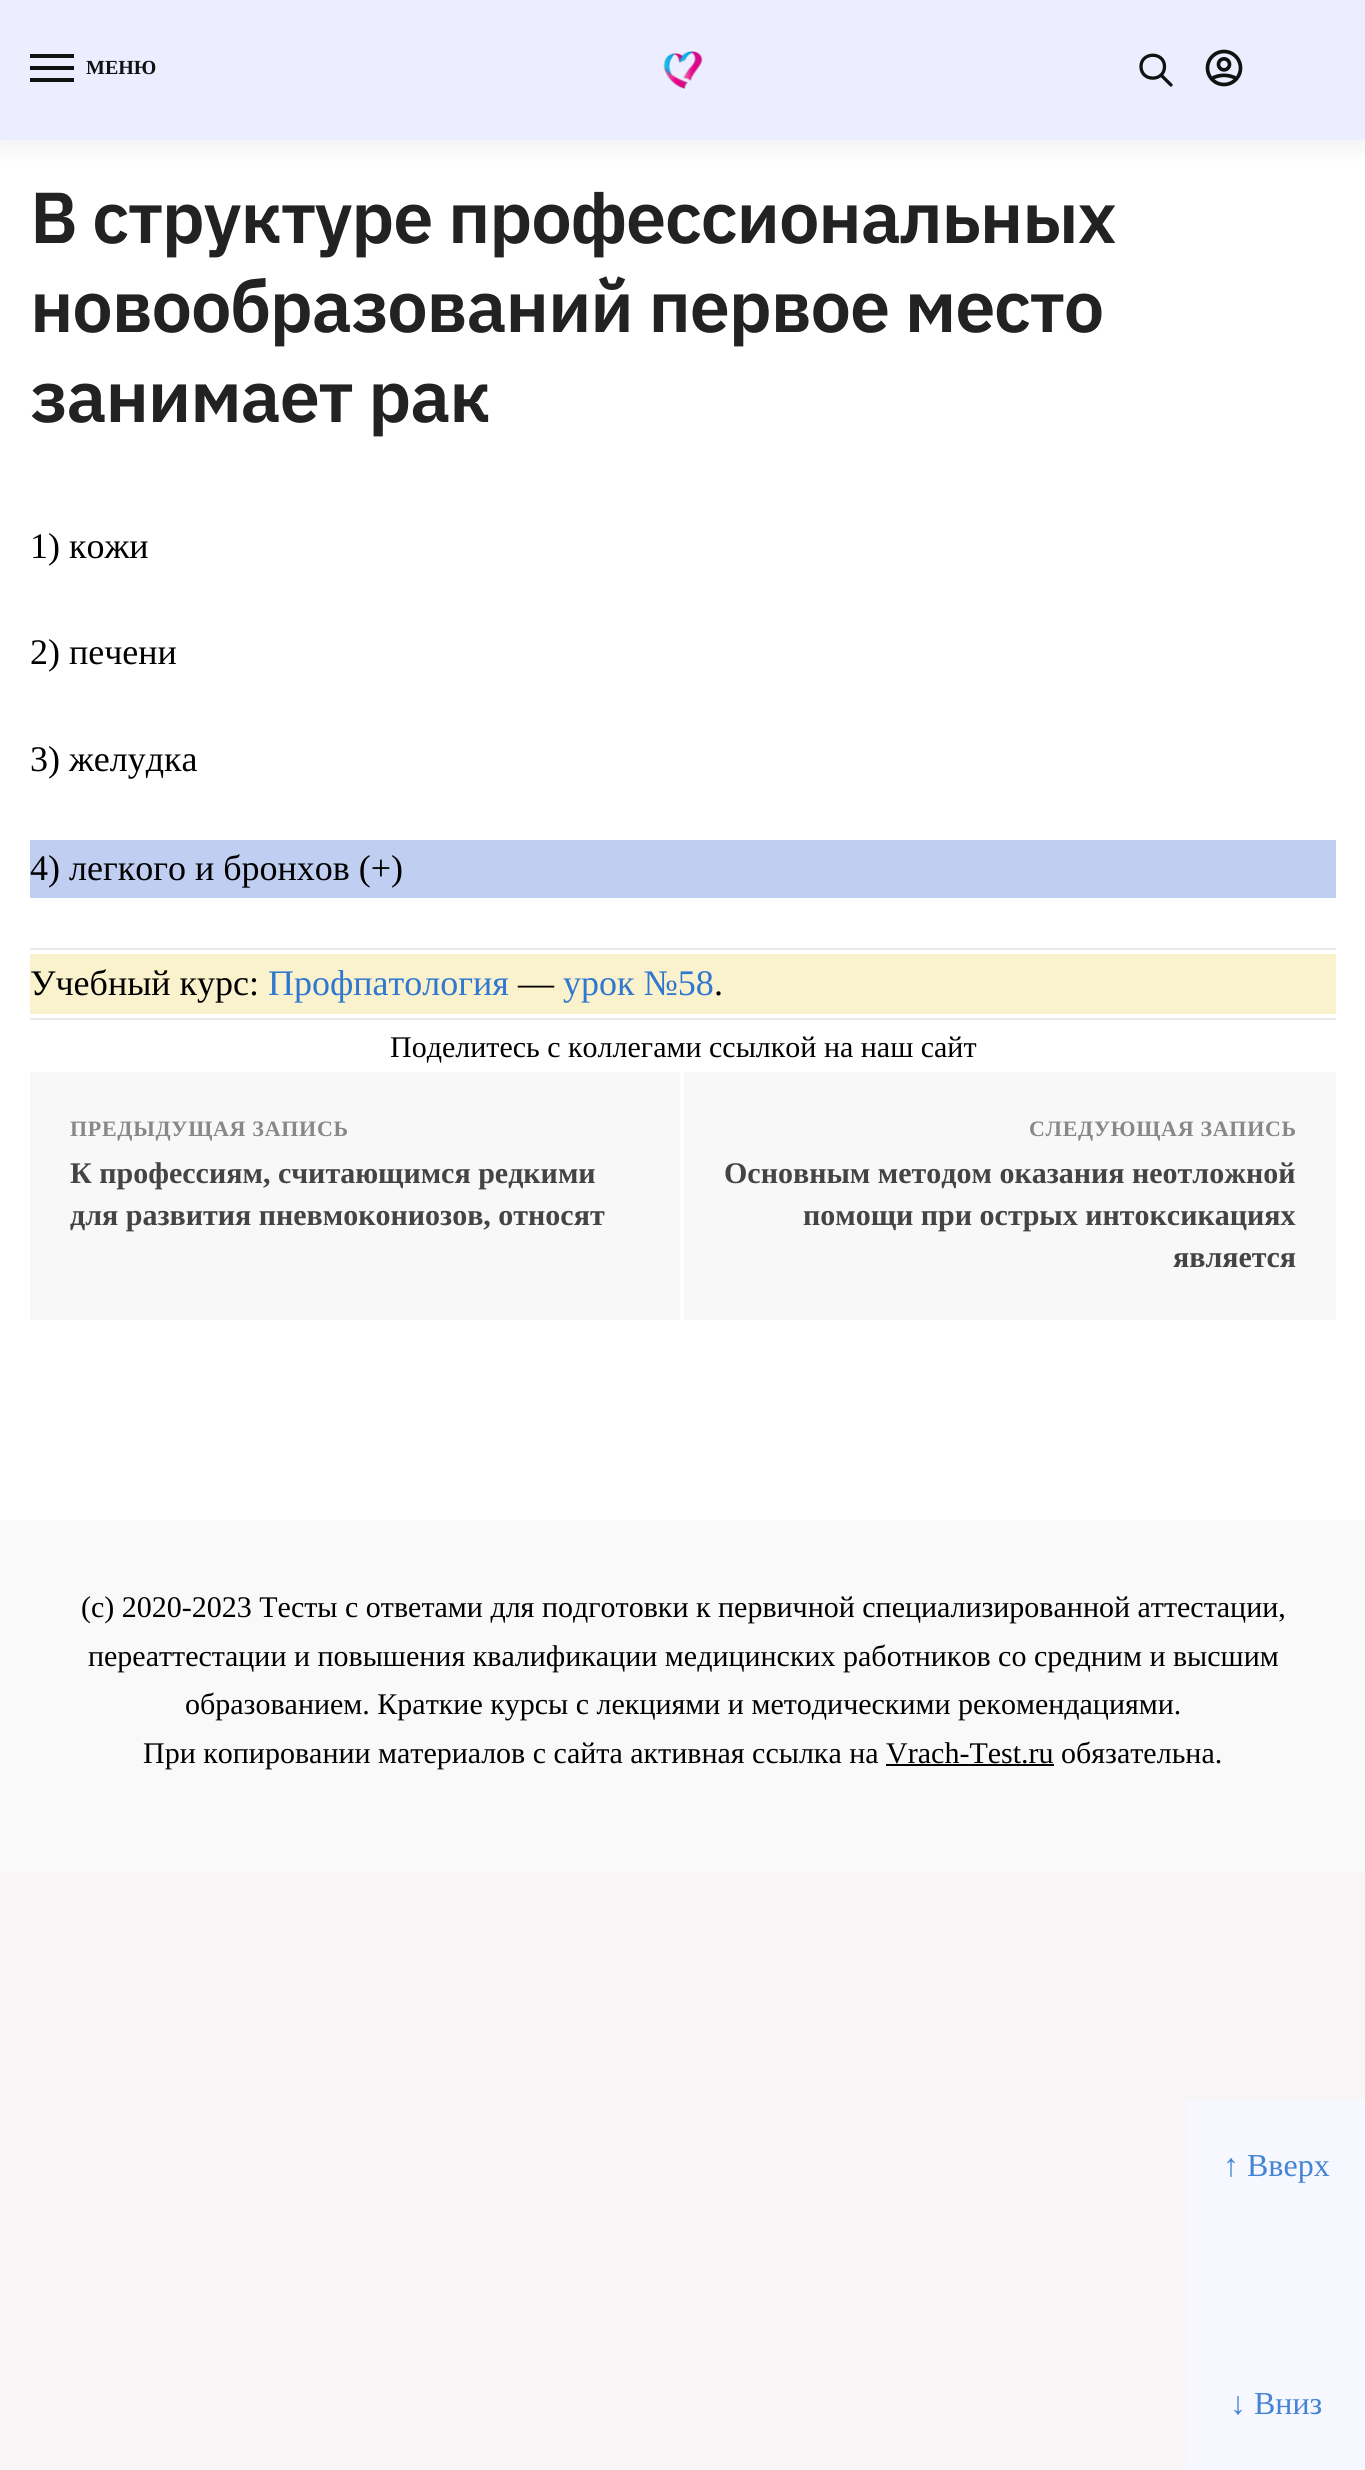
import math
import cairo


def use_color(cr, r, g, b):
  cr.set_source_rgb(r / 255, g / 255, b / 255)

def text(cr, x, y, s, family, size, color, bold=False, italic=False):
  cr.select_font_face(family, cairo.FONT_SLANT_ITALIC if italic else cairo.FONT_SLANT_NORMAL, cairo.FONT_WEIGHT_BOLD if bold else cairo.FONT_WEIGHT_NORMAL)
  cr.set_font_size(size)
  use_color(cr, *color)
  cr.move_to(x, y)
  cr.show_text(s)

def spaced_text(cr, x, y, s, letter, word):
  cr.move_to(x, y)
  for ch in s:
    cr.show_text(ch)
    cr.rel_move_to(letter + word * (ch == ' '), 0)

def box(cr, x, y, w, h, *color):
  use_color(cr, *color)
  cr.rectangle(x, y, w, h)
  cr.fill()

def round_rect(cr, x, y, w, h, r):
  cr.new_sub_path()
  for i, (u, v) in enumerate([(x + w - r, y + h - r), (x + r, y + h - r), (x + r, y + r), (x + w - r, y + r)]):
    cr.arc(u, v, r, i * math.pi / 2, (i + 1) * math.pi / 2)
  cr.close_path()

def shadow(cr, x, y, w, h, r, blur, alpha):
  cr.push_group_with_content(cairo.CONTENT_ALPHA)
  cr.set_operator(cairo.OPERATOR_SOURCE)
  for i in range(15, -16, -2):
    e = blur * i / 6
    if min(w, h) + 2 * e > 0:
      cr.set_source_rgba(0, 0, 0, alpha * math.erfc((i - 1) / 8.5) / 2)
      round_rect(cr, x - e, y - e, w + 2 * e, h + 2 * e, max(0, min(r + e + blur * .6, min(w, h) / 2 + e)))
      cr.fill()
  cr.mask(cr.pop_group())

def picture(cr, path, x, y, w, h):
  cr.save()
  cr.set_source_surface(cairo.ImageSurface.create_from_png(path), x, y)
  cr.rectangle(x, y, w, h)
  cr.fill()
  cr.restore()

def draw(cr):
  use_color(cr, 247, 245, 245)
  cr.paint()
  box(cr, 0, 140, 1365, 1380, 255, 255, 255)
  use_color(cr, 0, 0, 0)
  shadow(cr, 0, 2, 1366, 140, 0, 15, 0.08)
  box(cr, 0, 0, 1365, 140, 236, 238, 255)
  box(cr, 30, 54, 44, 4, 17, 17, 17)
  box(cr, 30, 66, 44, 4, 17, 17, 17)
  box(cr, 30, 78, 44, 4, 17, 17, 17)
  picture(cr, "img_01.png", 663, 51, 40, 38)
  cr.new_path()
  cr.move_to(1171, 85)
  cr.line_to(1161, 75)
  cr.move_to(1164.5, 66.5)
  cr.curve_to(1164.5, 82, 1141, 82, 1141, 66.5)
  cr.curve_to(1141, 51.5, 1164.5, 51.5, 1164.5, 66.5)
  cr.close_path()
  cr.set_line_width(3.3)
  cr.set_line_cap(cairo.LINE_CAP_ROUND)
  cr.set_line_join(cairo.LINE_JOIN_ROUND)
  cr.stroke()
  picture(cr, "img_02.png", 1205, 49, 38, 38)
  box(cr, 30, 840, 1306, 58, 192, 207, 241)
  box(cr, 30, 948, 1306, 2, 233, 233, 233)
  box(cr, 30, 954, 1306, 60, 249, 242, 204)
  box(cr, 30, 1018, 1306, 2, 233, 233, 233)
  box(cr, 30, 1072, 1306, 248, 248, 248, 248)
  box(cr, 680, 1072, 4, 248, 255, 255, 255)
  box(cr, 0, 1520, 1365, 352, 249, 249, 249)
  box(cr, 886, 1764, 168, 2, 0, 0, 0)
  box(cr, 1186, 2100, 179, 370, 247, 248, 255)
  text(cr, 86, 74, "МЕНЮ", "Liberation Serif", 20, (17, 17, 17), bold=True)
  cr.select_font_face("IBM Plex Sans SemiBold")
  cr.set_font_size(72)
  use_color(cr, 34, 34, 34)
  spaced_text(cr, 30, 243, "В структуре профессиональных", -1.2, 0)
  spaced_text(cr, 30, 332, "новообразований первое место", -1.2, 0)
  spaced_text(cr, 30, 422, "занимает рак", -1.2, 0)
  text(cr, 30, 558, "1) кожи", "Liberation Serif", 36, (0, 0, 0))
  text(cr, 30, 664, "2) печени", "Liberation Serif", 36, (0, 0, 0))
  text(cr, 30, 771, "3) желудка", "Liberation Serif", 36, (0, 0, 0))
  text(cr, 30, 880, "4) легкого и бронхов (+)", "Liberation Serif", 36, (0, 0, 0))
  text(cr, 30, 995, "Учебный курс:", "Liberation Serif", 36, (0, 0, 0))
  text(cr, 268, 995, "Профпатология", "Liberation Serif", 36, (48, 119, 208))
  text(cr, 518, 995, "—", "Liberation Serif", 36, (0, 0, 0))
  text(cr, 563, 995, "урок №58", "Liberation Serif", 36, (48, 119, 208))
  text(cr, 714, 995, ".", "Liberation Serif", 36, (0, 0, 0))
  text(cr, 390, 1057, "Поделитесь с коллегами ссылкой на наш сайт", "Liberation Serif", 30, (0, 0, 0))
  cr.select_font_face("Liberation Serif", cairo.FONT_SLANT_NORMAL, cairo.FONT_WEIGHT_BOLD)
  cr.set_font_size(22)
  use_color(cr, 136, 136, 136)
  spaced_text(cr, 70, 1136, "ПРЕДЫДУЩАЯ ЗАПИСЬ", 0.7, 0)
  text(cr, 70, 1183, "К профессиям, считающимся редкими", "Liberation Serif", 30, (68, 68, 68), bold=True)
  text(cr, 70, 1225, "для развития пневмокониозов, относят", "Liberation Serif", 30, (68, 68, 68), bold=True)
  cr.set_font_size(22)
  use_color(cr, 136, 136, 136)
  spaced_text(cr, 1029, 1136, "СЛЕДУЮЩАЯ ЗАПИСЬ", 0.7, 0)
  text(cr, 724, 1183, "Основным методом оказания неотложной", "Liberation Serif", 30, (68, 68, 68), bold=True)
  text(cr, 803, 1225, "помощи при острых интоксикациях", "Liberation Serif", 30, (68, 68, 68), bold=True)
  text(cr, 1173, 1267, "является", "Liberation Serif", 30, (68, 68, 68), bold=True)
  text(cr, 81, 1617, "(c) 2020-2023 Тесты с ответами для подготовки к первичной специализированной аттестации,", "Liberation Serif", 30, (0, 0, 0))
  text(cr, 88, 1666, "переаттестации и повышения квалификации медицинских работников со средним и высшим", "Liberation Serif", 30, (0, 0, 0))
  text(cr, 185, 1714, "образованием. Краткие курсы с лекциями и методическими рекомендациями.", "Liberation Serif", 30, (0, 0, 0))
  text(cr, 143, 1763, "При копировании материалов с сайта активная ссылка на Vrach-Test.ru обязательна.", "Liberation Serif", 30, (0, 0, 0))
  text(cr, 1223, 2176, "↑ Вверх", "Liberation Serif", 32, (68, 132, 213))
  text(cr, 1230, 2414, "↓ Вниз", "Liberation Serif", 32, (68, 132, 213))


surface = cairo.ImageSurface(cairo.FORMAT_RGB24, 1365, 2470)
cr = cairo.Context(surface)
options = cairo.FontOptions()
options.set_hint_metrics(cairo.HINT_METRICS_OFF)
options.set_hint_style(cairo.HINT_STYLE_NONE)
cr.set_font_options(options)
cr.set_miter_limit(4)
draw(cr)
surface.write_to_png("out.png")
